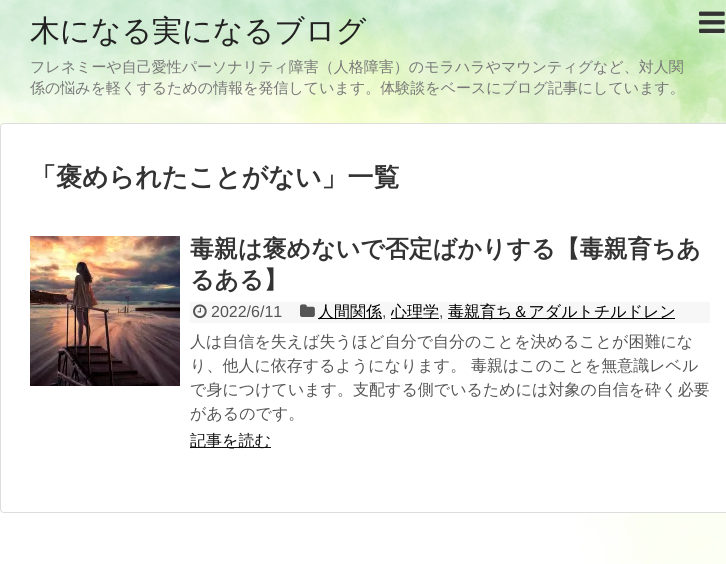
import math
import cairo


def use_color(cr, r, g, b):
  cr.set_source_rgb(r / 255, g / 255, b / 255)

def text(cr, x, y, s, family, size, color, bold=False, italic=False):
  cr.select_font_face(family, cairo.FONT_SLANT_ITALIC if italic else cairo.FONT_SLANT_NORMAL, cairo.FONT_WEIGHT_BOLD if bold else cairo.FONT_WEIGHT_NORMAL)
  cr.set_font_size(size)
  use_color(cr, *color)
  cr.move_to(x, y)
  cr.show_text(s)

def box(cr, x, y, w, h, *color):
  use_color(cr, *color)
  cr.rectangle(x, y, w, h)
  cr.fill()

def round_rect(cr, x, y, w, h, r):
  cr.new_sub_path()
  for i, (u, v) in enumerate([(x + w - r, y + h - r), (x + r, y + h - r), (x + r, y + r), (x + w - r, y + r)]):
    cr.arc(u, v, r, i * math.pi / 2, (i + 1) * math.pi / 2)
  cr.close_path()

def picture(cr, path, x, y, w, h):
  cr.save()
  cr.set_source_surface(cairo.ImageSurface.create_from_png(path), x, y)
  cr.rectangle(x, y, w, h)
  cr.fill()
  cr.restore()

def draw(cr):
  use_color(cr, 255, 255, 255)
  cr.paint()
  picture(cr, "img_01.png", 0, 0, 726, 564)
  picture(cr, "img_02.png", 699, 11, 26, 22)
  use_color(cr, 255, 255, 255)
  round_rect(cr, 0.5, 123.5, 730, 389, 3.5)
  cr.fill_preserve()
  use_color(cr, 221, 221, 221)
  cr.set_line_width(1)
  cr.stroke()
  picture(cr, "img_03.png", 30, 236, 150, 150)
  box(cr, 190, 302, 520, 21, 247, 247, 247)
  picture(cr, "img_04.png", 193, 304, 14, 15)
  picture(cr, "img_05.png", 300, 304, 15, 13)
  box(cr, 318, 318, 64, 1, 0, 0, 0)
  box(cr, 391, 318, 48, 1, 0, 0, 0)
  box(cr, 448, 318, 227, 1, 0, 0, 0)
  box(cr, 190, 447, 81, 1, 17, 17, 17)
  text(cr, 30, 41, "木になる実になるブログ", "WenQuanYi Zen Hei Medium", 30, (34, 34, 34))
  text(cr, 30, 72, "フレネミーや自己愛性パーソナリティ障害（人格障害）のモラハラやマウンティグなど、対人関", "WenQuanYi Zen Hei Medium", 15, (119, 119, 119))
  text(cr, 30, 93, "係の悩みを軽くするための情報を発信しています。体験談をベースにブログ記事にしています。", "WenQuanYi Zen Hei Medium", 15, (119, 119, 119))
  text(cr, 30, 186, "「褒められたことがない」一覧", "WenQuanYi Zen Hei", 26, (51, 51, 51), bold=True)
  text(cr, 190, 257, "毒親は褒めないで否定ばかりする【毒親育ちあ", "WenQuanYi Zen Hei", 24, (51, 51, 51), bold=True)
  text(cr, 190, 288, "るある】", "WenQuanYi Zen Hei", 24, (51, 51, 51), bold=True)
  text(cr, 211, 317, "2022/6/11", "Liberation Sans", 16, (85, 85, 85))
  text(cr, 318, 317, "人間関係", "WenQuanYi Zen Hei Medium", 16, (0, 0, 0))
  text(cr, 382, 317, ",", "Liberation Sans", 16, (85, 85, 85))
  text(cr, 391, 317, "心理学", "WenQuanYi Zen Hei Medium", 16, (0, 0, 0))
  text(cr, 439, 317, ",", "Liberation Sans", 16, (85, 85, 85))
  text(cr, 448, 317, "毒親育ち＆アダルトチルドレン", "WenQuanYi Zen Hei Medium", 16, (0, 0, 0))
  text(cr, 190, 347, "人は自信を失えば失うほど自分で自分のことを決めることが困難にな", "WenQuanYi Zen Hei Medium", 16, (85, 85, 85))
  text(cr, 190, 371, "り、他人に依存するようになります。 毒親はこのことを無意識レベル", "WenQuanYi Zen Hei Medium", 16, (85, 85, 85))
  text(cr, 190, 395, "で身につけています。支配する側でいるためには対象の自信を砕く必要", "WenQuanYi Zen Hei Medium", 16, (85, 85, 85))
  text(cr, 190, 419, "があるのです。", "WenQuanYi Zen Hei Medium", 16, (85, 85, 85))
  text(cr, 190, 446, "記事を読む", "WenQuanYi Zen Hei Medium", 16, (17, 17, 17))


surface = cairo.ImageSurface(cairo.FORMAT_RGB24, 726, 564)
cr = cairo.Context(surface)
options = cairo.FontOptions()
options.set_hint_metrics(cairo.HINT_METRICS_OFF)
options.set_hint_style(cairo.HINT_STYLE_NONE)
cr.set_font_options(options)
cr.set_miter_limit(4)
draw(cr)
surface.write_to_png("out.png")
